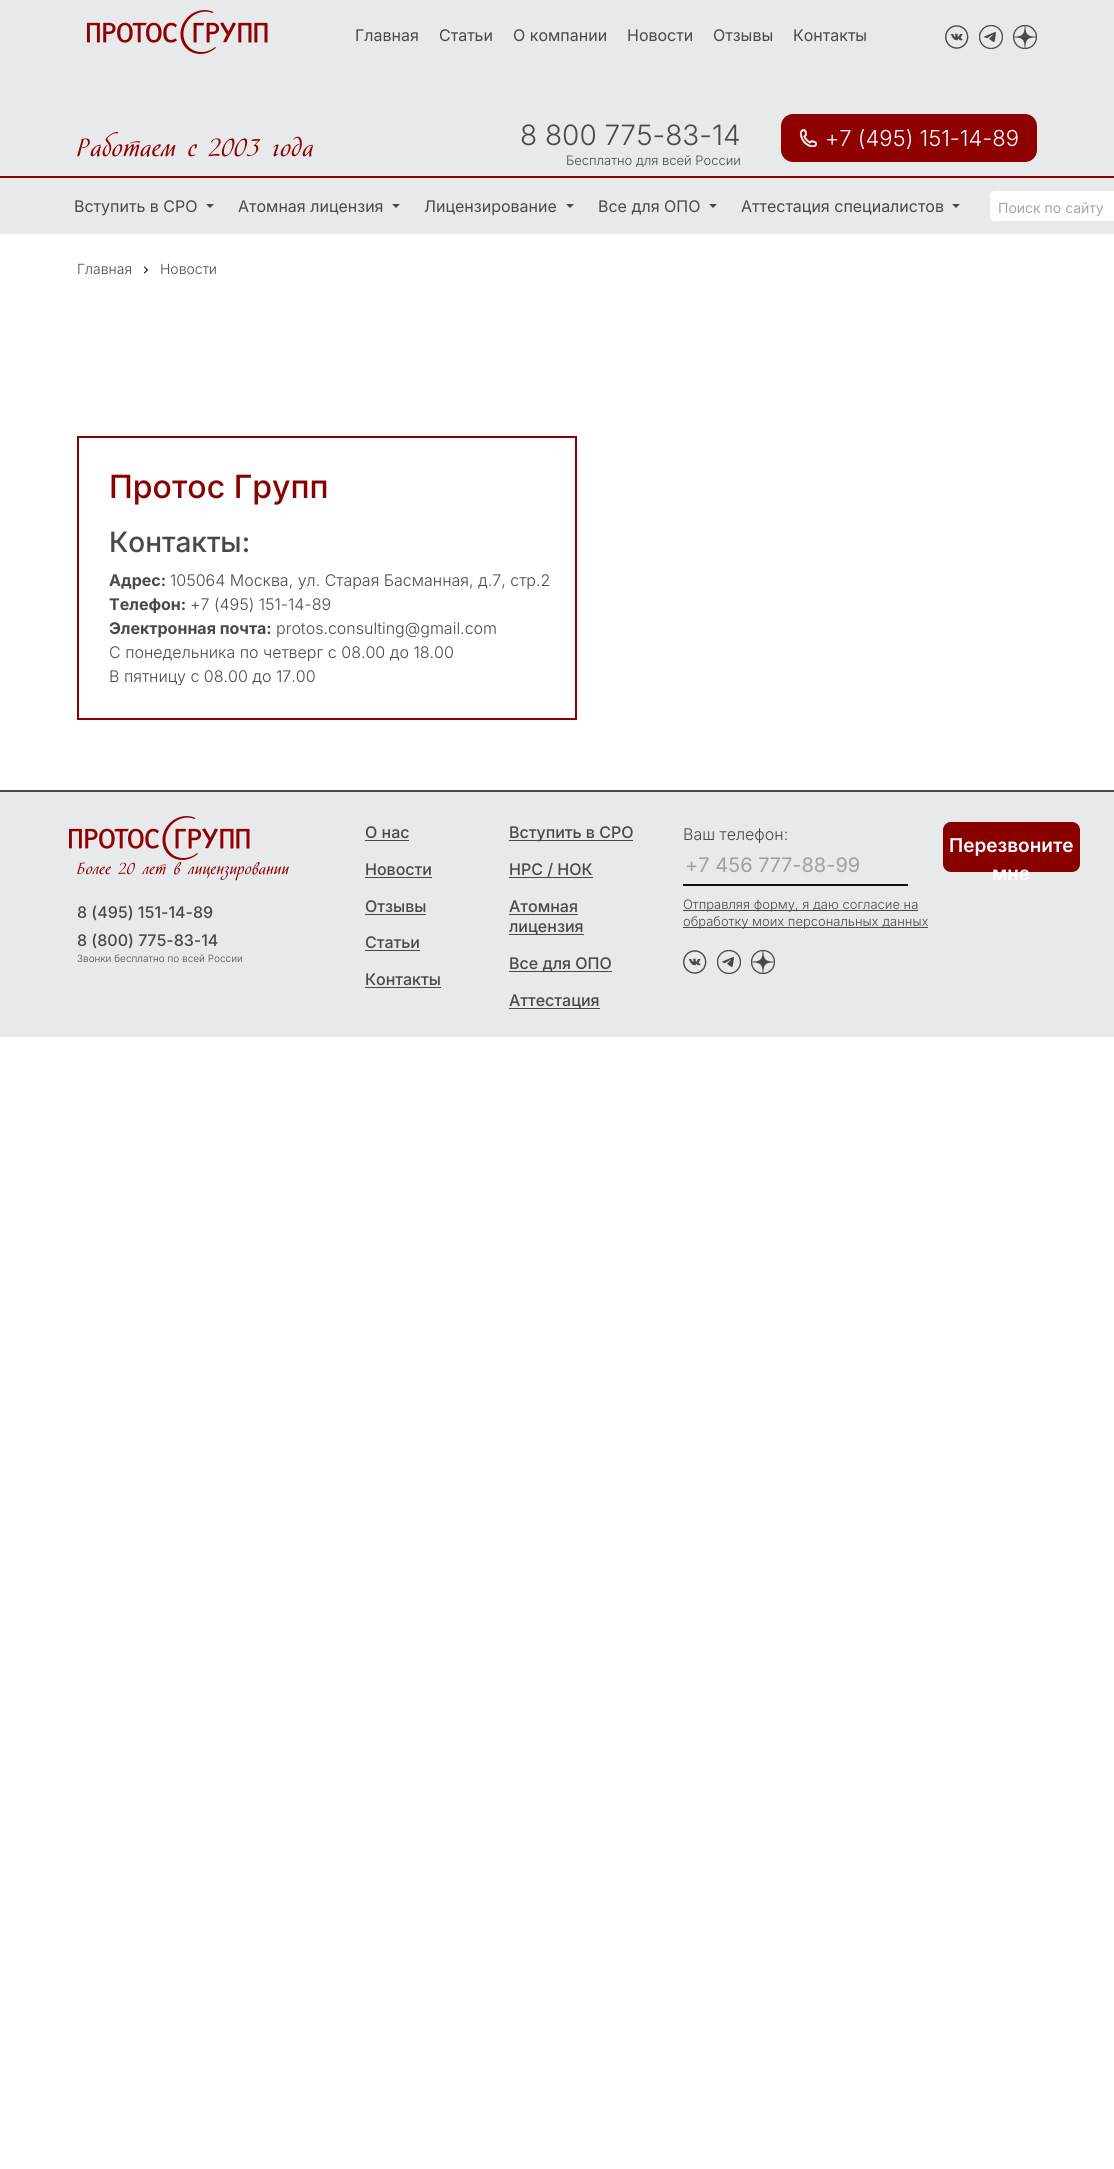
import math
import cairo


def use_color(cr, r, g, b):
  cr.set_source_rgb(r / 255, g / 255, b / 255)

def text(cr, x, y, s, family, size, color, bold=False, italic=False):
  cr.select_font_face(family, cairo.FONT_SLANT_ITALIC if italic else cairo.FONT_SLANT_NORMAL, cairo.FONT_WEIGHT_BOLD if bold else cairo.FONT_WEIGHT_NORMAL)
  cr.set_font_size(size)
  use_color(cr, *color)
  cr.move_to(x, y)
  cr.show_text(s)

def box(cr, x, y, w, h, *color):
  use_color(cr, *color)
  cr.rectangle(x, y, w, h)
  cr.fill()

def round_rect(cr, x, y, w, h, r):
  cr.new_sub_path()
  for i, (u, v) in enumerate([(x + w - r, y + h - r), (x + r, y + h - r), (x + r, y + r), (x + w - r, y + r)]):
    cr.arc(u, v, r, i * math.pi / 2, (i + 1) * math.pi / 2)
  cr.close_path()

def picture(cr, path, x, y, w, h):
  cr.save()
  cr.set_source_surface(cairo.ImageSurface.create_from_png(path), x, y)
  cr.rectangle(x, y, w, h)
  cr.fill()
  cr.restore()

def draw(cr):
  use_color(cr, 255, 255, 255)
  cr.paint()
  box(cr, 0, 0, 1114, 234, 232, 233, 235)
  picture(cr, "img_01.png", 87, 10, 181, 44)
  picture(cr, "img_02.png", 945, 25, 24, 24)
  picture(cr, "img_03.png", 979, 25, 24, 24)
  picture(cr, "img_04.png", 1013, 25, 24, 24)
  use_color(cr, 142, 0, 2)
  round_rect(cr, 781, 114, 256, 48, 12)
  cr.fill()
  picture(cr, "img_05.png", 799, 129, 18, 18)
  box(cr, 0, 176, 1114, 2, 139, 0, 0)
  use_color(cr, 73, 73, 73)
  cr.new_path()
  cr.move_to(206, 204)
  cr.line_to(214, 204)
  cr.line_to(210, 208)
  cr.close_path()
  cr.fill()
  cr.new_path()
  cr.move_to(392, 204)
  cr.line_to(400, 204)
  cr.line_to(396, 208)
  cr.close_path()
  cr.fill()
  cr.new_path()
  cr.move_to(566, 204)
  cr.line_to(574, 204)
  cr.line_to(570, 208)
  cr.close_path()
  cr.fill()
  cr.new_path()
  cr.move_to(709, 204)
  cr.line_to(717, 204)
  cr.line_to(713, 208)
  cr.close_path()
  cr.fill()
  cr.new_path()
  cr.move_to(952, 204)
  cr.line_to(960, 204)
  cr.line_to(956, 208)
  cr.close_path()
  cr.fill()
  use_color(cr, 255, 255, 255)
  round_rect(cr, 990, 191, 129, 30, 5)
  cr.fill()
  cr.new_path()
  cr.move_to(144.5, 273)
  cr.line_to(147.5, 270)
  cr.line_to(144.5, 267)
  use_color(cr, 0, 0, 0)
  cr.set_line_width(1)
  cr.set_line_cap(cairo.LINE_CAP_ROUND)
  cr.set_line_join(cairo.LINE_JOIN_ROUND)
  cr.stroke()
  cr.rectangle(78, 437, 498, 282)
  use_color(cr, 136, 0, 0)
  cr.set_line_width(2)
  cr.set_line_cap(cairo.LINE_CAP_BUTT)
  cr.set_line_join(cairo.LINE_JOIN_MITER)
  cr.stroke()
  box(cr, 0, 792, 1114, 245, 232, 233, 235)
  box(cr, 0, 790, 1114, 2, 73, 73, 73)
  picture(cr, "img_01.png", 69, 816, 181, 44)
  box(cr, 365, 840, 44, 1, 73, 73, 73)
  box(cr, 365, 877, 67, 1, 73, 73, 73)
  box(cr, 365, 914, 61, 1, 73, 73, 73)
  box(cr, 365, 950, 55, 1, 73, 73, 73)
  box(cr, 365, 987, 76, 1, 73, 73, 73)
  box(cr, 509, 840, 124, 1, 73, 73, 73)
  box(cr, 509, 877, 84, 1, 73, 73, 73)
  box(cr, 509, 914, 69, 1, 73, 73, 73)
  box(cr, 509, 934, 75, 1, 73, 73, 73)
  box(cr, 509, 971, 103, 1, 73, 73, 73)
  box(cr, 509, 1008, 91, 1, 73, 73, 73)
  box(cr, 683, 884, 225, 2, 15, 15, 15)
  box(cr, 683, 910, 235, 1, 73, 73, 73)
  box(cr, 683, 927, 245, 1, 73, 73, 73)
  picture(cr, "img_02.png", 683, 950, 24, 24)
  picture(cr, "img_03.png", 717, 950, 24, 24)
  picture(cr, "img_04.png", 751, 950, 24, 24)
  use_color(cr, 136, 0, 0)
  round_rect(cr, 943, 822, 137, 50, 8)
  cr.fill()
  text(cr, 355, 41, "Главная", "Inter", 16, (73, 73, 73))
  text(cr, 439, 41, "Статьи", "Inter", 16, (73, 73, 73))
  text(cr, 513, 41, "О компании", "Inter", 16, (73, 73, 73))
  text(cr, 627, 41, "Новости", "Inter", 16, (73, 73, 73))
  text(cr, 713, 41, "Отзывы", "Inter", 16, (73, 73, 73))
  text(cr, 793, 41, "Контакты", "Inter", 16, (73, 73, 73))
  text(cr, 77, 156, "Работаем с 2003 года", "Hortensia", 25, (142, 0, 2))
  text(cr, 520, 145, "8 800 775-83-14", "Inter Light", 28, (73, 73, 73))
  text(cr, 566, 165, "Бесплатно для всей России", "Inter Light", 13, (73, 73, 73))
  text(cr, 825, 146, "+7 (495) 151-14-89", "Inter Light", 22, (255, 255, 255))
  text(cr, 74, 212, "Вступить в СРО", "Inter", 16, (73, 73, 73))
  text(cr, 238, 212, "Атомная лицензия", "Inter", 16, (73, 73, 73))
  text(cr, 424, 212, "Лицензирование", "Inter", 16, (73, 73, 73))
  text(cr, 598, 212, "Все для ОПО", "Inter", 16, (73, 73, 73))
  text(cr, 741, 212, "Аттестация специалистов", "Inter", 16, (73, 73, 73))
  text(cr, 998, 213, "Поиск по сайту", "Inter", 14, (167, 167, 167))
  text(cr, 77, 274, "Главная", "Inter Light", 14, (73, 73, 73))
  text(cr, 160, 274, "Новости", "Inter Light", 14, (73, 73, 73))
  text(cr, 109, 498, "Протос Групп", "Inter Medium", 32, (136, 0, 0))
  text(cr, 109, 552, "Контакты:", "Inter Medium", 28, (73, 73, 73))
  text(cr, 109, 586, "Адрес:", "Inter", 16, (73, 73, 73), bold=True)
  text(cr, 170, 586, "105064 Москва, ул. Старая Басманная, д.7, стр.2", "Inter Light", 16, (73, 73, 73))
  text(cr, 109, 610, "Телефон:", "Inter", 16, (73, 73, 73), bold=True)
  text(cr, 190, 610, "+7 (495) 151-14-89", "Inter Light", 16, (73, 73, 73))
  text(cr, 109, 634, "Электронная почта:", "Inter", 16, (73, 73, 73), bold=True)
  text(cr, 276, 634, "protos.consulting@gmail.com", "Inter Light", 16, (73, 73, 73))
  text(cr, 109, 658, "С понедельника по четверг с 08.00 до 18.00", "Inter Light", 16, (73, 73, 73))
  text(cr, 109, 682, "В пятницу с 08.00 до 17.00", "Inter Light", 16, (73, 73, 73))
  text(cr, 77, 874, "Более 20 лет в лицензировании", "Hortensia", 16, (142, 0, 2))
  text(cr, 77, 918, "8 (495) 151-14-89", "Inter Medium", 16, (73, 73, 73))
  text(cr, 77, 946, "8 (800) 775-83-14", "Inter Medium", 16, (73, 73, 73))
  text(cr, 77, 962, "Звонки бесплатно по всей России", "Inter Light", 10, (73, 73, 73))
  text(cr, 365, 838, "О нас", "Inter Medium", 16, (73, 73, 73))
  text(cr, 365, 875, "Новости", "Inter Medium", 16, (73, 73, 73))
  text(cr, 365, 912, "Отзывы", "Inter Medium", 16, (73, 73, 73))
  text(cr, 365, 948, "Статьи", "Inter Medium", 16, (73, 73, 73))
  text(cr, 365, 985, "Контакты", "Inter Medium", 16, (73, 73, 73))
  text(cr, 509, 838, "Вступить в СРО", "Inter Medium", 16, (73, 73, 73))
  text(cr, 509, 875, "НРС / НОК", "Inter Medium", 16, (73, 73, 73))
  text(cr, 509, 912, "Атомная", "Inter Medium", 16, (73, 73, 73))
  text(cr, 509, 932, "лицензия", "Inter Medium", 16, (73, 73, 73))
  text(cr, 509, 969, "Все для ОПО", "Inter Medium", 16, (73, 73, 73))
  text(cr, 509, 1006, "Аттестация", "Inter Medium", 16, (73, 73, 73))
  text(cr, 683, 840, "Ваш телефон:", "Inter Light", 16, (73, 73, 73))
  text(cr, 685, 872, "+7 456 777-88-99", "Inter", 20, (160, 160, 161))
  text(cr, 683, 909, "Отправляя форму, я даю согласие на", "Inter Light", 13, (73, 73, 73))
  text(cr, 683, 926, "обработку моих персональных данных", "Inter Light", 13, (73, 73, 73))
  text(cr, 949, 852, "Перезвоните", "Inter SemiBold", 19, (255, 255, 255))
  text(cr, 992, 880, "мне", "Inter SemiBold", 19, (255, 255, 255))


surface = cairo.ImageSurface(cairo.FORMAT_RGB24, 1114, 2169)
cr = cairo.Context(surface)
options = cairo.FontOptions()
options.set_hint_metrics(cairo.HINT_METRICS_OFF)
options.set_hint_style(cairo.HINT_STYLE_NONE)
cr.set_font_options(options)
cr.set_miter_limit(4)
draw(cr)
surface.write_to_png("out.png")
